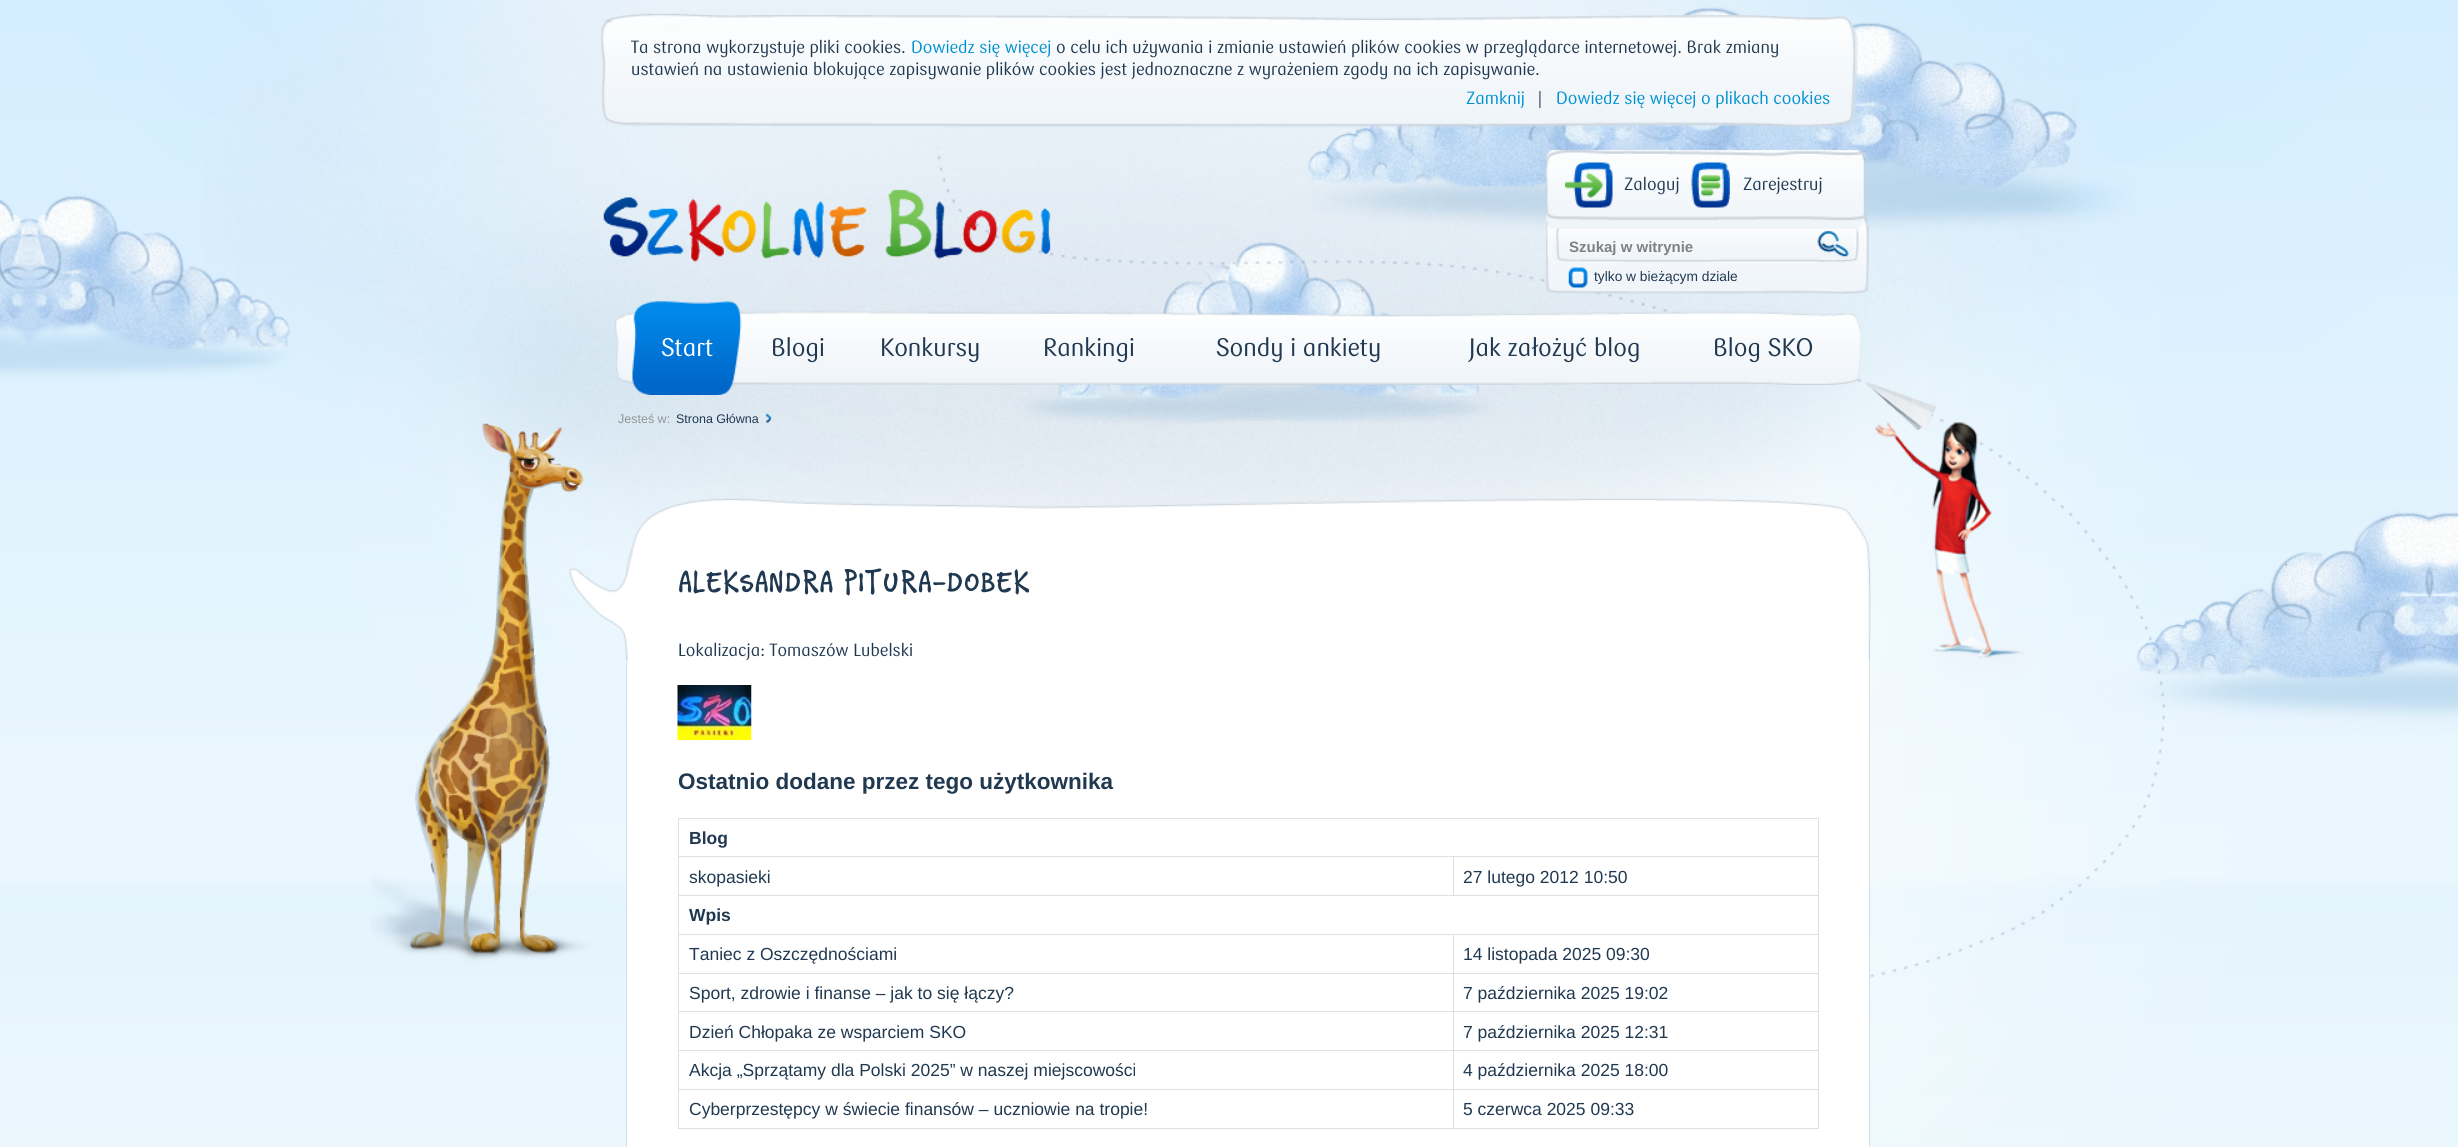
import math
import cairo


def use_color(cr, r, g, b):
  cr.set_source_rgb(r / 255, g / 255, b / 255)

def text(cr, x, y, s, family, size, color, bold=False, italic=False):
  cr.select_font_face(family, cairo.FONT_SLANT_ITALIC if italic else cairo.FONT_SLANT_NORMAL, cairo.FONT_WEIGHT_BOLD if bold else cairo.FONT_WEIGHT_NORMAL)
  cr.set_font_size(size)
  use_color(cr, *color)
  cr.move_to(x, y)
  cr.show_text(s)

def box(cr, x, y, w, h, *color):
  use_color(cr, *color)
  cr.rectangle(x, y, w, h)
  cr.fill()

def round_rect(cr, x, y, w, h, r):
  cr.new_sub_path()
  for i, (u, v) in enumerate([(x + w - r, y + h - r), (x + r, y + h - r), (x + r, y + r), (x + w - r, y + r)]):
    cr.arc(u, v, r, i * math.pi / 2, (i + 1) * math.pi / 2)
  cr.close_path()

def picture(cr, path, x, y, w, h):
  cr.save()
  cr.set_source_surface(cairo.ImageSurface.create_from_png(path), x, y)
  cr.rectangle(x, y, w, h)
  cr.fill()
  cr.restore()

def draw(cr):
  use_color(cr, 255, 255, 255)
  cr.paint()
  picture(cr, "img_01.png", 0, 0, 2458, 1147)
  picture(cr, "img_02.png", 601, 13, 1257, 115)
  picture(cr, "img_03.png", 370, 147, 1796, 831)
  picture(cr, "img_04.png", 603, 189, 448, 73)
  picture(cr, "img_05.png", 1546, 149, 323, 145)
  picture(cr, "img_06.png", 1565, 162, 48, 46)
  picture(cr, "img_07.png", 1691, 162, 39, 46)
  picture(cr, "img_08.png", 1817, 231, 32, 26)
  picture(cr, "img_09.png", 1568, 267, 20, 21)
  picture(cr, "img_10.png", 615, 310, 1246, 75)
  picture(cr, "img_11.png", 632, 301, 110, 94)
  picture(cr, "img_12.png", 765, 413, 7, 10)
  use_color(cr, 255, 255, 255)
  round_rect(cr, 626.5, 529.5, 1243, 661, 42.5)
  cr.fill_preserve()
  use_color(cr, 217, 224, 230)
  cr.set_line_width(1)
  cr.stroke()
  picture(cr, "img_13.png", 569, 498, 1302, 162)
  picture(cr, "img_14.png", 677, 685, 75, 55)
  box(cr, 678, 818, 1141, 1, 217, 224, 230)
  box(cr, 678, 818, 1, 311, 217, 224, 230)
  box(cr, 1818, 818, 1, 311, 217, 224, 230)
  box(cr, 1453, 895, 366, 1, 217, 224, 230)
  box(cr, 1453, 856, 1, 40, 217, 224, 230)
  box(cr, 678, 856, 1141, 1, 217, 224, 230)
  box(cr, 678, 895, 776, 1, 217, 224, 230)
  box(cr, 1453, 1128, 366, 1, 217, 224, 230)
  box(cr, 1453, 1089, 1, 40, 217, 224, 230)
  box(cr, 1453, 1089, 366, 1, 217, 224, 230)
  box(cr, 1453, 1050, 1, 40, 217, 224, 230)
  box(cr, 1453, 1050, 366, 1, 217, 224, 230)
  box(cr, 1453, 1011, 1, 40, 217, 224, 230)
  box(cr, 1453, 1011, 366, 1, 217, 224, 230)
  box(cr, 1453, 973, 1, 40, 217, 224, 230)
  box(cr, 1453, 973, 366, 1, 217, 224, 230)
  box(cr, 1453, 934, 1, 40, 217, 224, 230)
  box(cr, 678, 934, 1141, 1, 217, 224, 230)
  box(cr, 678, 973, 776, 1, 217, 224, 230)
  box(cr, 678, 1011, 776, 1, 217, 224, 230)
  box(cr, 678, 1050, 776, 1, 217, 224, 230)
  box(cr, 678, 1089, 776, 1, 217, 224, 230)
  box(cr, 678, 1128, 776, 1, 217, 224, 230)
  text(cr, 631, 53, "Ta strona wykorzystuje pliki cookies.", "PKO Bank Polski", 17.5, (32, 57, 81))
  text(cr, 911, 53, "Dowiedz się więcej", "PKO Bank Polski", 17.5, (0, 145, 209))
  text(cr, 1056, 53, "o celu ich używania i zmianie ustawień plików cookies w przeglądarce internetowej. Brak zmiany", "PKO Bank Polski", 17.5, (32, 57, 81))
  text(cr, 631, 75, "ustawień na ustawienia blokujące zapisywanie plików cookies jest jednoznaczne z wyrażeniem zgody na ich zapisywanie.", "PKO Bank Polski", 17.5, (32, 57, 81))
  text(cr, 1466, 104, "Zamknij", "PKO Bank Polski", 17.5, (0, 145, 209))
  text(cr, 1537, 104, "|", "PKO Bank Polski", 17.5, (32, 57, 81))
  text(cr, 1556, 104, "Dowiedz się więcej o plikach cookies", "PKO Bank Polski", 17.5, (0, 145, 209))
  text(cr, 1624, 190, "Zaloguj", "PKO Bank Polski", 17.5, (32, 57, 81))
  text(cr, 1743, 190, "Zarejestruj", "PKO Bank Polski", 17.5, (32, 57, 81))
  text(cr, 1569, 252, "Szukaj w witrynie", "Liberation Sans", 15, (128, 128, 128), bold=True)
  text(cr, 1594, 281, "tylko w bieżącym dziale", "Liberation Sans", 13.75, (32, 57, 81))
  text(cr, 661, 356, "Start", "PKO Bank Polski", 25, (255, 255, 255))
  text(cr, 771, 356, "Blogi", "PKO Bank Polski", 25, (32, 57, 81))
  text(cr, 880, 356, "Konkursy", "PKO Bank Polski", 25, (32, 57, 81))
  text(cr, 1043, 356, "Rankingi", "PKO Bank Polski", 25, (32, 57, 81))
  text(cr, 1216, 356, "Sondy i ankiety", "PKO Bank Polski", 25, (32, 57, 81))
  text(cr, 1469, 356, "Jak założyć blog", "PKO Bank Polski", 25, (32, 57, 81))
  text(cr, 1713, 356, "Blog SKO", "PKO Bank Polski", 25, (32, 57, 81))
  text(cr, 618, 423, "Jesteś w:", "Liberation Sans", 12.5, (145, 149, 150))
  text(cr, 676, 423, "Strona Główna", "Liberation Sans", 12.5, (32, 57, 81))
  text(cr, 678, 591, "ALEKSANDRA PITURA-DOBEK", "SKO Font", 25, (32, 57, 81))
  text(cr, 678, 656, "Lokalizacja: Tomaszów Lubelski", "PKO Bank Polski", 17.5, (32, 57, 81))
  text(cr, 678, 789, "Ostatnio dodane przez tego użytkownika", "Liberation Sans", 22.5, (32, 57, 81), bold=True)
  text(cr, 689, 844, "Blog", "Liberation Sans", 17.5, (32, 57, 81), bold=True)
  text(cr, 689, 883, "skopasieki", "Liberation Sans", 17.5, (32, 57, 81))
  text(cr, 1463, 883, "27 lutego 2012 10:50", "Liberation Sans", 17.5, (32, 57, 81))
  text(cr, 689, 921, "Wpis", "Liberation Sans", 17.5, (32, 57, 81), bold=True)
  text(cr, 689, 960, "Taniec z Oszczędnościami", "Liberation Sans", 17.5, (32, 57, 81))
  text(cr, 1463, 960, "14 listopada 2025 09:30", "Liberation Sans", 17.5, (32, 57, 81))
  text(cr, 689, 999, "Sport, zdrowie i finanse – jak to się łączy?", "Liberation Sans", 17.5, (32, 57, 81))
  text(cr, 1463, 999, "7 października 2025 19:02", "Liberation Sans", 17.5, (32, 57, 81))
  text(cr, 689, 1038, "Dzień Chłopaka ze wsparciem SKO", "Liberation Sans", 17.5, (32, 57, 81))
  text(cr, 1463, 1038, "7 października 2025 12:31", "Liberation Sans", 17.5, (32, 57, 81))
  text(cr, 689, 1076, "Akcja „Sprzątamy dla Polski 2025” w naszej miejscowości", "Liberation Sans", 17.5, (32, 57, 81))
  text(cr, 1463, 1076, "4 października 2025 18:00", "Liberation Sans", 17.5, (32, 57, 81))
  text(cr, 689, 1115, "Cyberprzestępcy w świecie finansów – uczniowie na tropie!", "Liberation Sans", 17.5, (32, 57, 81))
  text(cr, 1463, 1115, "5 czerwca 2025 09:33", "Liberation Sans", 17.5, (32, 57, 81))


surface = cairo.ImageSurface(cairo.FORMAT_RGB24, 2458, 1147)
cr = cairo.Context(surface)
options = cairo.FontOptions()
options.set_hint_metrics(cairo.HINT_METRICS_OFF)
options.set_hint_style(cairo.HINT_STYLE_NONE)
cr.set_font_options(options)
cr.set_miter_limit(4)
draw(cr)
surface.write_to_png("out.png")
